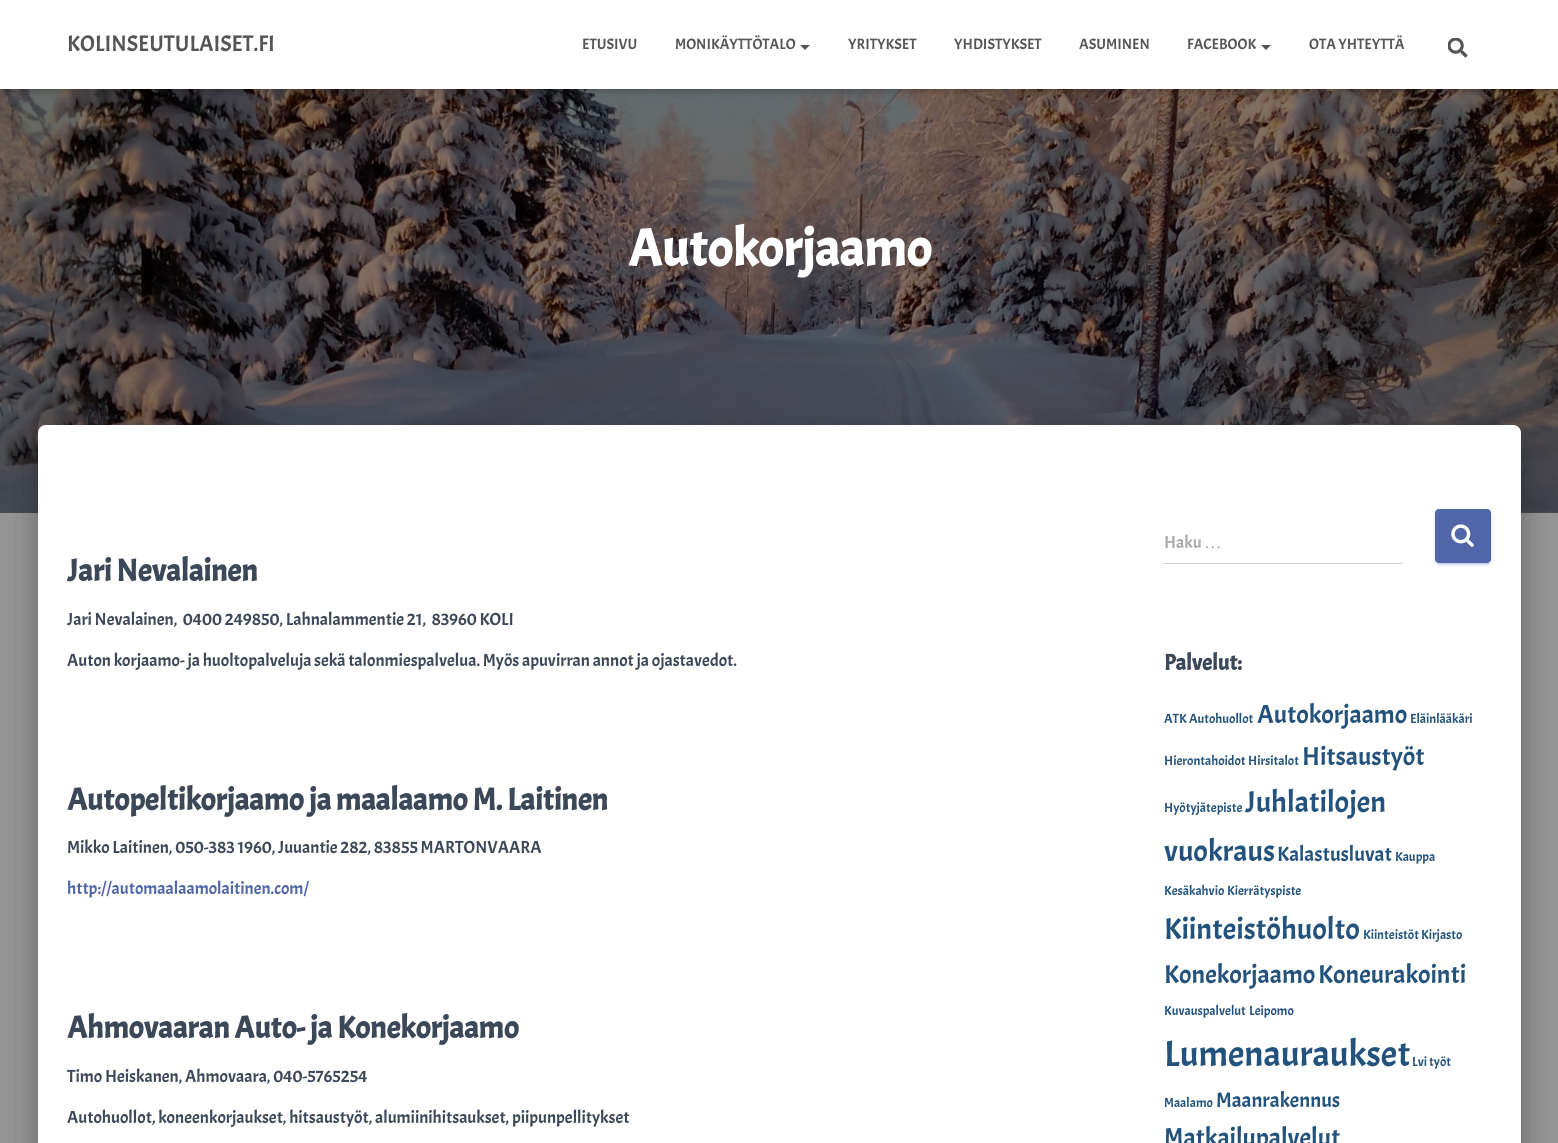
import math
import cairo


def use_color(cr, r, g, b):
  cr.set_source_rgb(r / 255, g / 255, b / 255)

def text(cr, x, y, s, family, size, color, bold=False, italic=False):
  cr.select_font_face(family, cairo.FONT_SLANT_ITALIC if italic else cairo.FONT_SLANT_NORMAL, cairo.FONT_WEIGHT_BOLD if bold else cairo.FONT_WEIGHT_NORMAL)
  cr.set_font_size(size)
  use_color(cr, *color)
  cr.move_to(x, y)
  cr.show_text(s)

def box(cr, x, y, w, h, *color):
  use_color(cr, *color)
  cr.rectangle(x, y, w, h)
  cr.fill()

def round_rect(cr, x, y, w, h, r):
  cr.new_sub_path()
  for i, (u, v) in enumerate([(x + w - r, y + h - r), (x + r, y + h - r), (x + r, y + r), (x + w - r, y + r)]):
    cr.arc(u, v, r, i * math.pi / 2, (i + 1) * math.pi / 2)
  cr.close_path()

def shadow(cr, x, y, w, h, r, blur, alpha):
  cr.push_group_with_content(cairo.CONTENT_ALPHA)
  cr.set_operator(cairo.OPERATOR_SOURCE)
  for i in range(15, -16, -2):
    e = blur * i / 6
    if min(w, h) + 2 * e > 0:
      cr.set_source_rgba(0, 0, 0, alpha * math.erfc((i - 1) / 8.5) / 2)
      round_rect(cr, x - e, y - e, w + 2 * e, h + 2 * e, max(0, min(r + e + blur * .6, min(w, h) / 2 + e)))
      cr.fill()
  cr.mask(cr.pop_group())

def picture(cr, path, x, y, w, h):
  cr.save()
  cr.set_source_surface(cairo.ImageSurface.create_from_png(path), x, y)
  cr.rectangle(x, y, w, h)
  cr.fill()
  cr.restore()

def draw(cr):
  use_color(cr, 150, 150, 150)
  cr.paint()
  box(cr, 0, 512, 1558, 1, 75, 75, 75)
  picture(cr, "img_02.png", 0, 89, 1558, 424)
  use_color(cr, 0, 0, 0)
  shadow(cr, 3, 8, 1553, 83, 0, 3, 0.1)
  shadow(cr, 0, 1, 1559, 89, 0, 6, 0.12)
  shadow(cr, 8, 9, 1543, 74, 0, 6, 0.42)
  box(cr, 0, 0, 1558, 89, 255, 255, 255)
  use_color(cr, 85, 85, 85)
  cr.new_path()
  cr.move_to(800, 45)
  cr.line_to(810, 45)
  cr.line_to(805, 50)
  cr.close_path()
  cr.fill()
  cr.new_path()
  cr.move_to(1261, 45)
  cr.line_to(1271, 45)
  cr.line_to(1266, 50)
  cr.close_path()
  cr.fill()
  picture(cr, "img_01.png", 1448, 38, 20, 20)
  use_color(cr, 0, 0, 0)
  shadow(cr, 44, 441, 1471, 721, 1, 6, 0.2)
  shadow(cr, 31, 426, 1497, 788, 14, 19, 0.12)
  shadow(cr, 35, 443, 1489, 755, 10, 15, 0.14)
  use_color(cr, 255, 255, 255)
  cr.new_path()
  cr.move_to(46, 425)
  cr.line_to(1513, 425)
  cr.curve_to(1517.5, 425, 1521, 428.5, 1521, 433)
  cr.line_to(1521, 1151)
  cr.line_to(38, 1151)
  cr.line_to(38, 433)
  cr.curve_to(38, 428.5, 41.5, 425, 46, 425)
  cr.close_path()
  cr.fill()
  box(cr, 1164, 563, 239, 1, 210, 210, 210)
  use_color(cr, 80, 102, 168)
  shadow(cr, 1435, 510, 56, 54, 4, 3, 0.12)
  shadow(cr, 1438, 515, 51, 49, 1, 0.5, 0.2)
  shadow(cr, 1435, 511, 56, 54, 4, 1, 0.14)
  use_color(cr, 80, 102, 168)
  round_rect(cr, 1435, 509, 56, 54, 4)
  cr.fill()
  picture(cr, "img_03.png", 1451, 524, 23, 23)
  text(cr, 67, 51, "KOLINSEUTULAISET.FI", "Acme", 22.5, (85, 85, 85))
  text(cr, 582, 49, "ETUSIVU", "Acme", 15, (85, 85, 85))
  text(cr, 675, 49, "MONIKÄYTTÖTALO", "Acme", 15, (85, 85, 85))
  text(cr, 848, 49, "YRITYKSET", "Acme", 15, (85, 85, 85))
  text(cr, 954, 49, "YHDISTYKSET", "Acme", 15, (85, 85, 85))
  text(cr, 1079, 49, "ASUMINEN", "Acme", 15, (85, 85, 85))
  text(cr, 1187, 49, "FACEBOOK", "Acme", 15, (85, 85, 85))
  text(cr, 1309, 49, "OTA YHTEYTTÄ", "Acme", 15, (85, 85, 85))
  text(cr, 628, 266, "Autokorjaamo", "Acme", 52.5, (255, 255, 255), bold=True)
  text(cr, 67, 581, "Jari Nevalainen", "Acme", 31.25, (60, 72, 88), bold=True)
  text(cr, 67, 625, "Jari Nevalainen,  0400 249850, Lahnalammentie 21,  83960 KOLI", "Acme", 17.5, (60, 72, 88))
  text(cr, 67, 666, "Auton korjaamo- ja huoltopalveluja sekä talonmiespalvelua. Myös apuvirran annot ja ojastavedot.", "Acme", 17.5, (60, 72, 88))
  text(cr, 67, 810, "Autopeltikorjaamo ja maalaamo M. Laitinen", "Acme", 31.25, (60, 72, 88), bold=True)
  text(cr, 67, 853, "Mikko Laitinen, 050-383 1960, Juuantie 282, 83855 MARTONVAARA", "Acme", 17.5, (60, 72, 88))
  text(cr, 67, 894, "http://automaalaamolaitinen.com/", "Acme", 17.5, (80, 102, 168))
  text(cr, 67, 1038, "Ahmovaaran Auto- ja Konekorjaamo", "Acme", 31.25, (60, 72, 88), bold=True)
  text(cr, 67, 1082, "Timo Heiskanen, Ahmovaara, 040-5765254", "Acme", 17.5, (60, 72, 88))
  text(cr, 67, 1123, "Autohuollot, koneenkorjaukset, hitsaustyöt, alumiinihitsaukset, piipunpellitykset", "Acme", 17.5, (60, 72, 88))
  text(cr, 1164, 548, "Haku", "Acme", 17.5, (170, 170, 170))
  text(cr, 1204, 548, "…", "Liberation Serif", 17.5, (170, 170, 170))
  text(cr, 1164, 670, "Palvelut:", "Acme", 22.5, (60, 72, 88), bold=True)
  text(cr, 1164, 723, "ATK", "Acme", 13.25, (35, 82, 124))
  text(cr, 1189, 723, "Autohuollot", "Acme", 13.25, (35, 82, 124))
  text(cr, 1257, 723, "Autokorjaamo", "Acme", 26, (35, 82, 124))
  text(cr, 1410, 723, "Eläinlääkäri", "Acme", 13.25, (35, 82, 124))
  text(cr, 1164, 765, "Hierontahoidot", "Acme", 13.25, (35, 82, 124))
  text(cr, 1248, 765, "Hirsitalot", "Acme", 13.25, (35, 82, 124))
  text(cr, 1302, 765, "Hitsaustyöt", "Acme", 26, (35, 82, 124))
  text(cr, 1164, 812, "Hyötyjätepiste", "Acme", 13.25, (35, 82, 124))
  text(cr, 1245, 812, "Juhlatilojen", "Acme", 30.25, (35, 82, 124))
  text(cr, 1164, 861, "vuokraus", "Acme", 30.25, (35, 82, 124))
  text(cr, 1277, 861, "Kalastusluvat", "Acme", 21, (35, 82, 124))
  text(cr, 1395, 861, "Kauppa", "Acme", 13.25, (35, 82, 124))
  text(cr, 1164, 895, "Kesäkahvio", "Acme", 13.25, (35, 82, 124))
  text(cr, 1227, 895, "Kierrätyspiste", "Acme", 13.25, (35, 82, 124))
  text(cr, 1164, 939, "Kiinteistöhuolto", "Acme", 30.25, (35, 82, 124))
  text(cr, 1363, 939, "Kiinteistöt", "Acme", 13.25, (35, 82, 124))
  text(cr, 1421, 939, "Kirjasto", "Acme", 13.25, (35, 82, 124))
  text(cr, 1164, 983, "Konekorjaamo", "Acme", 26, (35, 82, 124))
  text(cr, 1318, 983, "Koneurakointi", "Acme", 26, (35, 82, 124))
  text(cr, 1164, 1015, "Kuvauspalvelut", "Acme", 13.25, (35, 82, 124))
  text(cr, 1249, 1015, "Leipomo", "Acme", 13.25, (35, 82, 124))
  text(cr, 1164, 1066, "Lumenauraukset", "Acme", 36.75, (35, 82, 124))
  text(cr, 1412, 1066, "Lvi työt", "Acme", 13.25, (35, 82, 124))
  text(cr, 1164, 1107, "Maalamo", "Acme", 13.25, (35, 82, 124))
  text(cr, 1216, 1107, "Maanrakennus", "Acme", 21, (35, 82, 124))
  text(cr, 1164, 1146, "Matkailupalvelut", "Acme", 26, (35, 82, 124))


surface = cairo.ImageSurface(cairo.FORMAT_RGB24, 1558, 1143)
cr = cairo.Context(surface)
options = cairo.FontOptions()
options.set_hint_metrics(cairo.HINT_METRICS_OFF)
options.set_hint_style(cairo.HINT_STYLE_NONE)
cr.set_font_options(options)
cr.set_miter_limit(4)
draw(cr)
surface.write_to_png("out.png")
